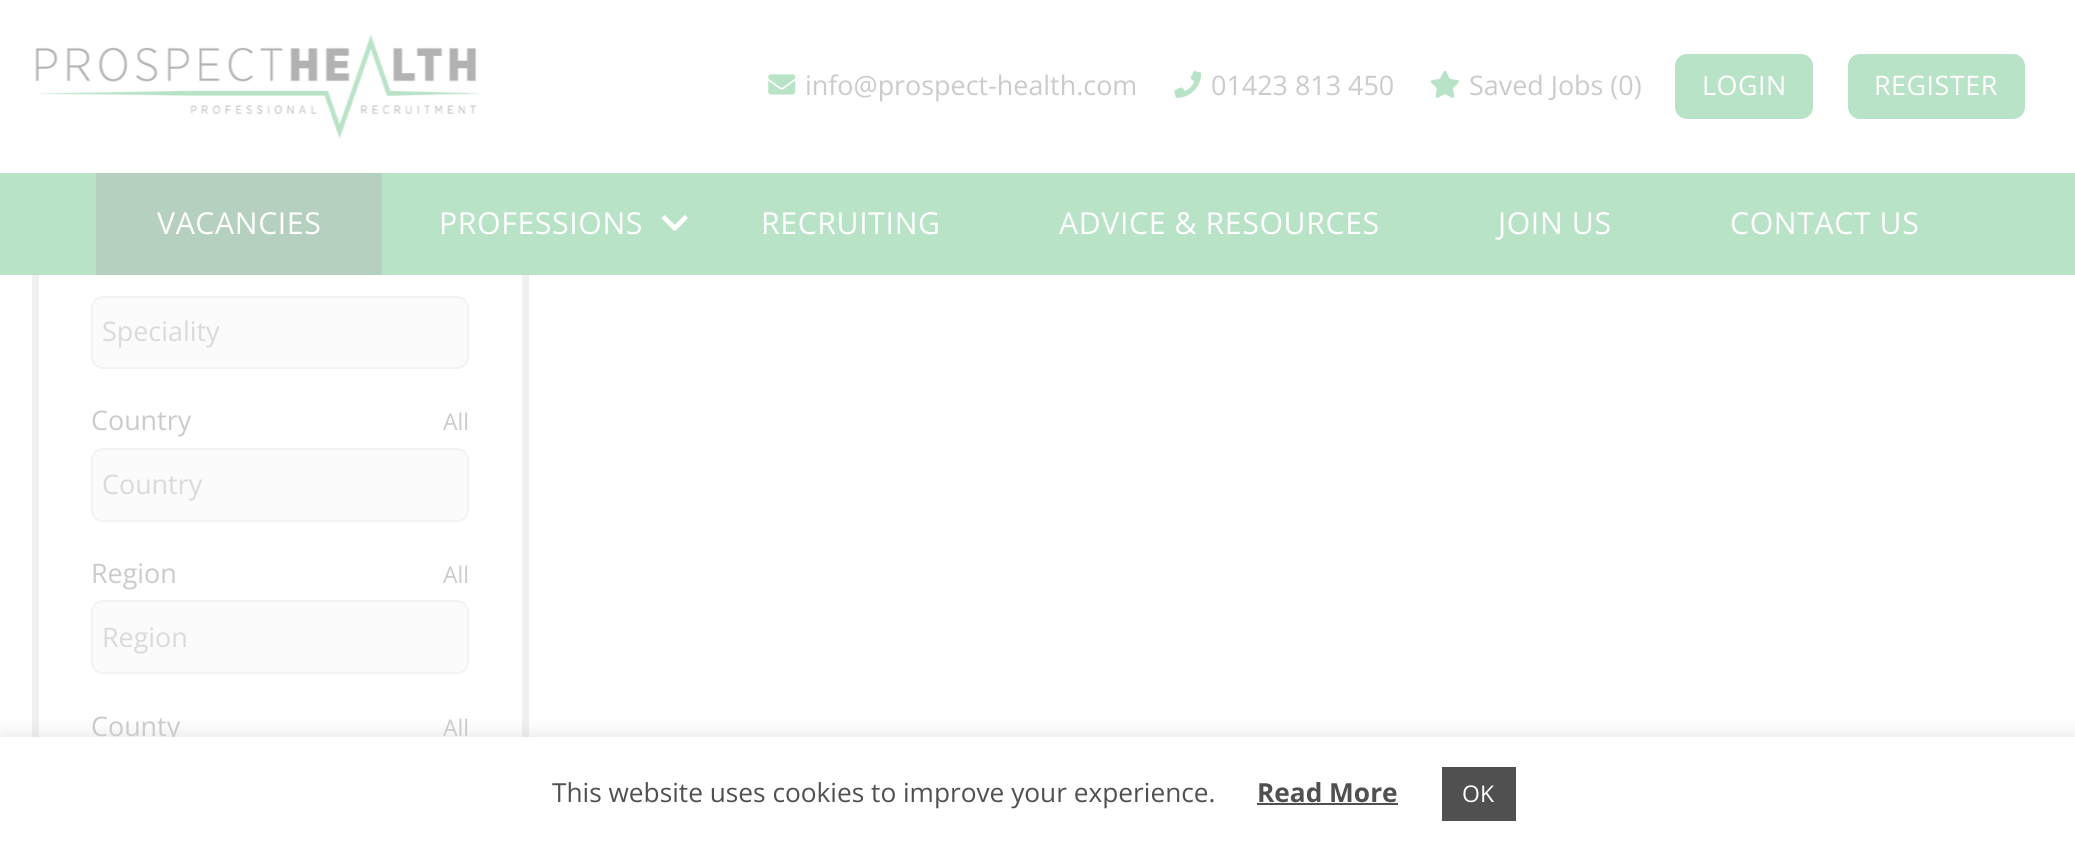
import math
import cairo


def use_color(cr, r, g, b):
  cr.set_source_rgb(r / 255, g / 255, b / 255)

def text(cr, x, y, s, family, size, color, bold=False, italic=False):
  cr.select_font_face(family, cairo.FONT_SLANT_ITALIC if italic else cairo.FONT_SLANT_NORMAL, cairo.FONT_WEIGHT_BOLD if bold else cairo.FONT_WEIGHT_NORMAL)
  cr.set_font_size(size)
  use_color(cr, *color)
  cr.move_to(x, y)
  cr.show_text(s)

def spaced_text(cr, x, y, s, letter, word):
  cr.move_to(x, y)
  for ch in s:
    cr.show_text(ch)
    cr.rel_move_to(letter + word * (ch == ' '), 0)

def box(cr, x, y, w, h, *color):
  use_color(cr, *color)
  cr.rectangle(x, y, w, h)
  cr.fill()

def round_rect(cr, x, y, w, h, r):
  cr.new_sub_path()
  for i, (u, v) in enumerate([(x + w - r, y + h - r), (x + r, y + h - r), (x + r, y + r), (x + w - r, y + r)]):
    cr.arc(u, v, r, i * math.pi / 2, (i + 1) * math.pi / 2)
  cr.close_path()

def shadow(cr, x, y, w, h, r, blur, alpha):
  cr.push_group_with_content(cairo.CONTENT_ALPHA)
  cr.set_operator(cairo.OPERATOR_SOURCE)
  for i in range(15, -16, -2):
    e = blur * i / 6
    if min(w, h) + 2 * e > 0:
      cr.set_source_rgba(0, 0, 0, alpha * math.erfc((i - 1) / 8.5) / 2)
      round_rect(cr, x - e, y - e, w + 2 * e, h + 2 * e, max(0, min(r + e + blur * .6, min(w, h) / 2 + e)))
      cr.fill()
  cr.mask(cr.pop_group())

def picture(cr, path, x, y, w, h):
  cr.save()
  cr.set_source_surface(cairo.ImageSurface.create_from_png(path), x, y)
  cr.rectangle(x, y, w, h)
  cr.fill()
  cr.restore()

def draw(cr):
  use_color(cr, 255, 255, 255)
  cr.paint()
  cr.rectangle(35.5, -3.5, 490, 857)
  use_color(cr, 240, 240, 240)
  cr.set_line_width(7)
  cr.stroke()
  box(cr, 32, 0, 497, 173, 255, 255, 255)
  picture(cr, "img_01.png", 35, 34, 447, 105)
  picture(cr, "img_02.png", 768, 74, 28, 21)
  picture(cr, "img_03.png", 1174, 71, 28, 27)
  picture(cr, "img_04.png", 1430, 71, 29, 27)
  use_color(cr, 185, 227, 199)
  round_rect(cr, 1675, 54, 138, 65, 12)
  cr.fill()
  round_rect(cr, 1848, 54, 177, 65, 12)
  cr.fill()
  box(cr, 0, 173, 2075, 102, 185, 227, 199)
  box(cr, 96, 173, 286, 102, 182, 208, 191)
  picture(cr, "img_05.png", 661, 215, 27, 16)
  use_color(cr, 251, 251, 251)
  round_rect(cr, 91, 296, 378, 73, 12)
  cr.fill()
  round_rect(cr, 92, 297, 376, 71, 11)
  cr.set_source_rgba(0.702, 0.702, 0.702, 0.1)
  cr.set_line_width(2)
  cr.stroke()
  use_color(cr, 251, 251, 251)
  round_rect(cr, 91, 448, 378, 74, 12)
  cr.fill()
  round_rect(cr, 92, 449, 376, 72, 11)
  cr.set_source_rgba(0.702, 0.702, 0.702, 0.1)
  cr.stroke()
  use_color(cr, 251, 251, 251)
  round_rect(cr, 91, 600, 378, 74, 12)
  cr.fill()
  round_rect(cr, 92, 601, 376, 72, 11)
  cr.set_source_rgba(0.702, 0.702, 0.702, 0.1)
  cr.stroke()
  use_color(cr, 172, 171, 171)
  shadow(cr, 0, 735, 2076, 114, 0, 9, 0.3)
  text(cr, 805, 95, "info@prospect-health.com", "Open Sans", 26.9, (203, 203, 203))
  text(cr, 1211, 95, "01423 813 450", "Open Sans", 26.9, (203, 203, 203))
  text(cr, 1469, 95, "Saved Jobs (0)", "Open Sans", 26.9, (203, 203, 203))
  use_color(cr, 255, 255, 255)
  spaced_text(cr, 1702, 95, "LOGIN", 0.5, 0)
  spaced_text(cr, 1874, 95, "REGISTER", 0.5, 0)
  cr.set_font_size(30.25)
  spaced_text(cr, 157, 234, "VACANCIES", 0.6, 0)
  spaced_text(cr, 439, 234, "PROFESSIONS", 0.6, 0)
  spaced_text(cr, 761, 234, "RECRUITING", 0.6, 0)
  spaced_text(cr, 1059, 234, "ADVICE & RESOURCES", 0.6, 0)
  spaced_text(cr, 1498, 234, "JOIN US", 0.6, 0)
  spaced_text(cr, 1730, 234, "CONTACT US", 0.6, 0)
  text(cr, 102, 341, "Speciality", "Open Sans", 26.9, (218, 218, 218))
  text(cr, 91, 430, "Country", "Open Sans", 26.9, (203, 203, 203))
  text(cr, 443, 430, "All", "Open Sans", 23, (203, 203, 203))
  text(cr, 102, 494, "Country", "Open Sans", 26.9, (218, 218, 218))
  text(cr, 91, 583, "Region", "Open Sans", 26.9, (203, 203, 203))
  text(cr, 443, 583, "All", "Open Sans", 23, (203, 203, 203))
  text(cr, 102, 647, "Region", "Open Sans", 26.9, (218, 218, 218))
  text(cr, 91, 736, "County", "Open Sans", 26.9, (203, 203, 203))
  text(cr, 443, 736, "All", "Open Sans", 23, (203, 203, 203))
  box(cr, 0, 737, 2075, 113, 255, 255, 255)
  text(cr, 552, 802, "This website uses cookies to improve your experience.", "Open Sans", 26.25, (80, 80, 80))
  text(cr, 1257, 802, "Read More", "Open Sans", 26.25, (80, 80, 80), bold=True)
  box(cr, 1257, 803, 141, 2, 80, 80, 80)
  box(cr, 1442, 767, 74, 54, 80, 80, 80)
  text(cr, 1462, 802, "OK", "Open Sans", 23, (255, 255, 255))


surface = cairo.ImageSurface(cairo.FORMAT_RGB24, 2075, 850)
cr = cairo.Context(surface)
options = cairo.FontOptions()
options.set_hint_metrics(cairo.HINT_METRICS_OFF)
options.set_hint_style(cairo.HINT_STYLE_NONE)
cr.set_font_options(options)
cr.set_miter_limit(4)
draw(cr)
surface.write_to_png("out.png")
